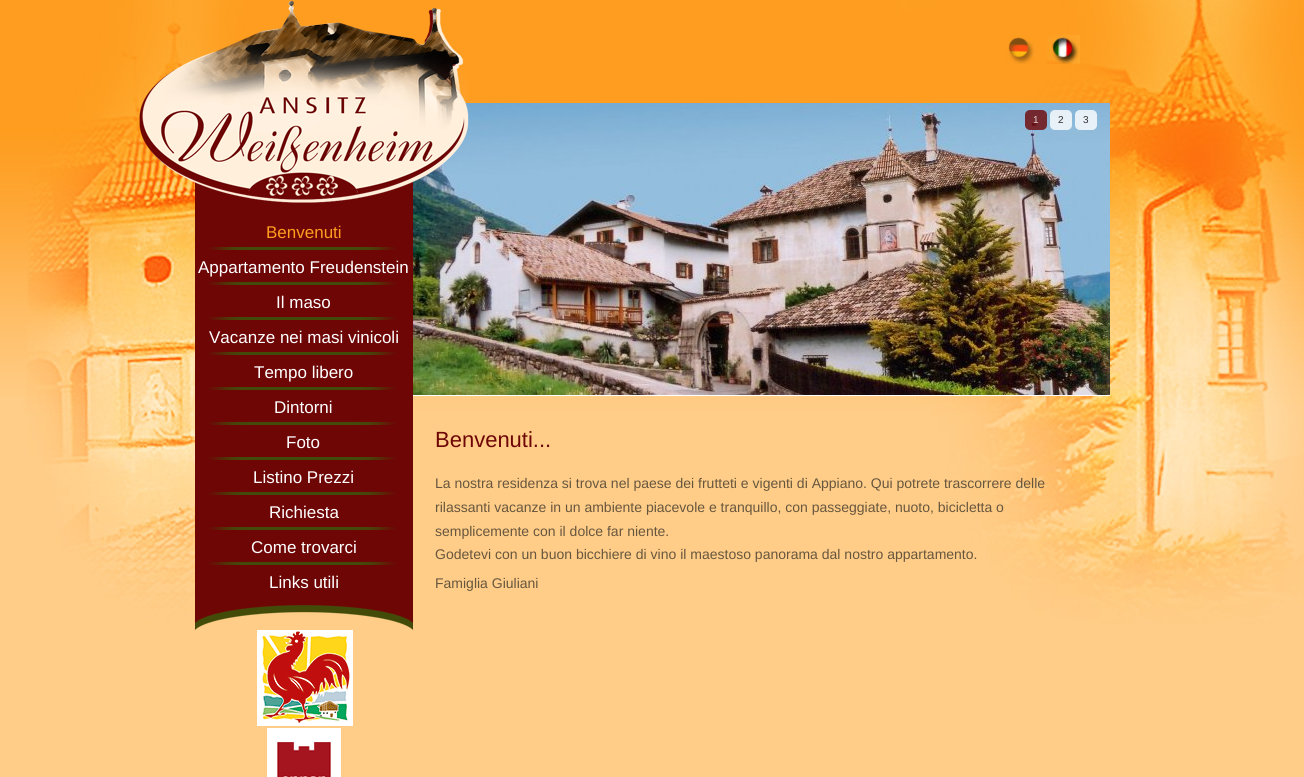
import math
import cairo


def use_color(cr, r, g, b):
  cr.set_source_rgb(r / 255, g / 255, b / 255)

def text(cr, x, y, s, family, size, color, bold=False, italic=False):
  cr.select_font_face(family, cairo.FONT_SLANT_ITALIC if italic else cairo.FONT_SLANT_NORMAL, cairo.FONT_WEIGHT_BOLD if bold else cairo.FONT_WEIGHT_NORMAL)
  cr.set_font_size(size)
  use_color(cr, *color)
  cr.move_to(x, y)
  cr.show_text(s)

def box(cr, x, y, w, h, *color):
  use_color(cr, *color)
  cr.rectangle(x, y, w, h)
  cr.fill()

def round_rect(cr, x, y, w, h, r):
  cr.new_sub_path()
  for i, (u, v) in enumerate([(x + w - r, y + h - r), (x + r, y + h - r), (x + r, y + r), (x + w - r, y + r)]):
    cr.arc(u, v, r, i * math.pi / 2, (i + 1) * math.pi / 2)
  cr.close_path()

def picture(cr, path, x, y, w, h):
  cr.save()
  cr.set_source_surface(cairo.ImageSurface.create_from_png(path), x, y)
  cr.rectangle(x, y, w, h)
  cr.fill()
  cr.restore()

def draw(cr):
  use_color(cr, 255, 205, 136)
  cr.paint()
  picture(cr, "img_01.png", 0, 0, 23, 397)
  picture(cr, "img_02.png", 23, 0, 1281, 624)
  picture(cr, "img_06.png", 413, 103, 697, 292)
  picture(cr, "img_03.png", 139, 0, 330, 215)
  picture(cr, "img_04.png", 1004, 35, 31, 29)
  picture(cr, "img_05.png", 1047, 35, 33, 29)
  box(cr, 413, 395, 697, 1, 255, 255, 255)
  cr.set_source_rgba(0.431, 0.024, 0.024, 0.8)
  round_rect(cr, 1025, 110, 22, 20, 5)
  cr.fill()
  cr.set_source_rgba(1, 1, 1, 0.8)
  round_rect(cr, 1050, 110, 22, 20, 5)
  cr.fill()
  round_rect(cr, 1075, 110, 22, 20, 5)
  cr.fill()
  box(cr, 195, 215, 218, 385, 110, 6, 6)
  picture(cr, "img_07.png", 209, 247, 187, 3)
  picture(cr, "img_07.png", 209, 282, 187, 3)
  picture(cr, "img_07.png", 209, 317, 187, 3)
  picture(cr, "img_07.png", 209, 352, 187, 3)
  picture(cr, "img_07.png", 209, 387, 187, 3)
  picture(cr, "img_07.png", 209, 422, 187, 3)
  picture(cr, "img_07.png", 209, 457, 187, 3)
  picture(cr, "img_07.png", 209, 492, 187, 3)
  picture(cr, "img_07.png", 209, 527, 187, 3)
  picture(cr, "img_07.png", 209, 562, 187, 3)
  picture(cr, "img_08.png", 195, 600, 218, 30)
  picture(cr, "img_09.png", 257, 630, 96, 96)
  picture(cr, "img_10.png", 267, 728, 74, 49)
  text(cr, 1033, 123, "1", "Liberation Sans", 10, (227, 212, 213))
  text(cr, 1058, 123, "2", "Liberation Sans", 10, (46, 48, 50))
  text(cr, 1083, 123, "3", "Liberation Sans", 10, (46, 48, 50))
  text(cr, 266, 238, "Benvenuti", "Liberation Sans", 17, (254, 157, 31))
  text(cr, 198, 273, "Appartamento Freudenstein", "Liberation Sans", 17, (255, 255, 255))
  text(cr, 276, 308, "Il maso", "Liberation Sans", 17, (255, 255, 255))
  text(cr, 209, 343, "Vacanze nei masi vinicoli", "Liberation Sans", 17, (255, 255, 255))
  text(cr, 254, 378, "Tempo libero", "Liberation Sans", 17, (255, 255, 255))
  text(cr, 274, 413, "Dintorni", "Liberation Sans", 17, (255, 255, 255))
  text(cr, 286, 448, "Foto", "Liberation Sans", 17, (255, 255, 255))
  text(cr, 253, 483, "Listino Prezzi", "Liberation Sans", 17, (255, 255, 255))
  text(cr, 269, 518, "Richiesta", "Liberation Sans", 17, (255, 255, 255))
  text(cr, 251, 553, "Come trovarci", "Liberation Sans", 17, (255, 255, 255))
  text(cr, 269, 588, "Links utili", "Liberation Sans", 17, (255, 255, 255))
  text(cr, 435, 447, "Benvenuti...", "Liberation Sans", 22, (110, 6, 6))
  text(cr, 435, 488, "La nostra residenza si trova nel paese dei frutteti e vigenti di Appiano. Qui potrete trascorrere delle", "Liberation Sans", 14, (103, 86, 62))
  text(cr, 435, 512, "rilassanti vacanze in un ambiente piacevole e tranquillo, con passeggiate, nuoto, bicicletta o", "Liberation Sans", 14, (103, 86, 62))
  text(cr, 435, 536, "semplicemente con il dolce far niente.", "Liberation Sans", 14, (103, 86, 62))
  text(cr, 435, 559, "Godetevi con un buon bicchiere di vino il maestoso panorama dal nostro appartamento.", "Liberation Sans", 14, (103, 86, 62))
  text(cr, 435, 588, "Famiglia Giuliani", "Liberation Sans", 14, (103, 86, 62))


surface = cairo.ImageSurface(cairo.FORMAT_RGB24, 1304, 777)
cr = cairo.Context(surface)
options = cairo.FontOptions()
options.set_hint_metrics(cairo.HINT_METRICS_OFF)
options.set_hint_style(cairo.HINT_STYLE_NONE)
cr.set_font_options(options)
cr.set_miter_limit(4)
draw(cr)
surface.write_to_png("out.png")
